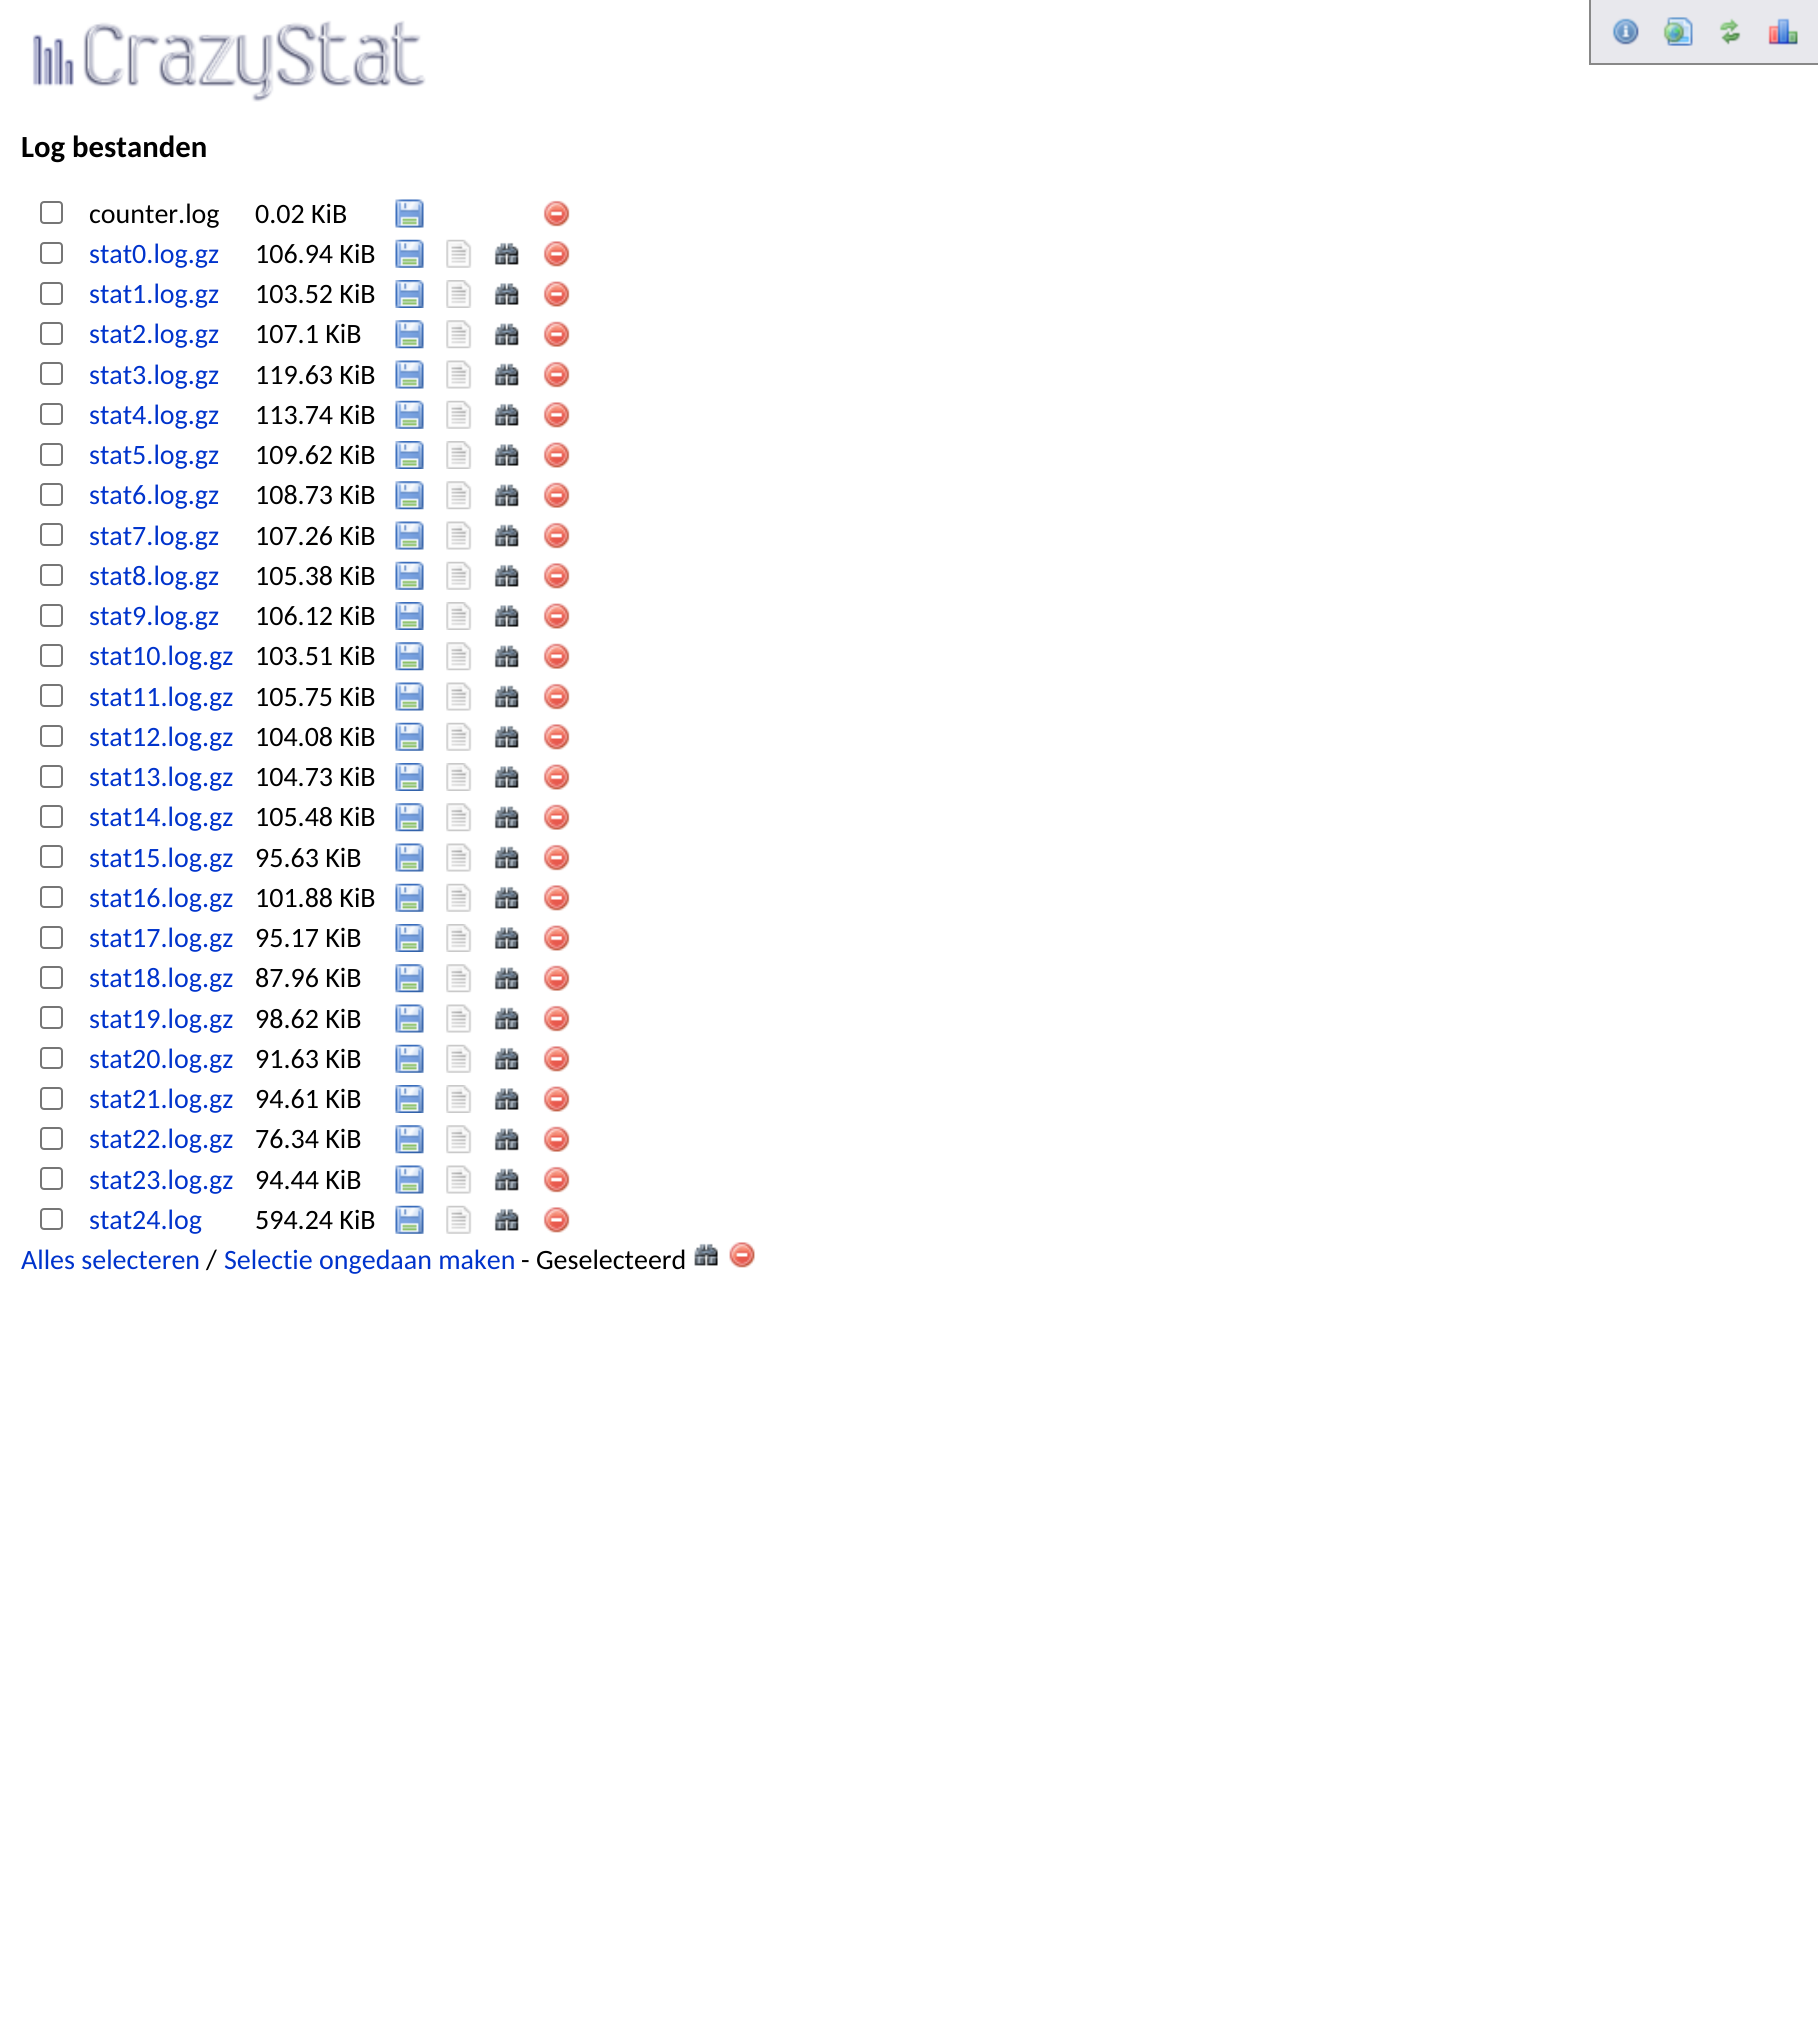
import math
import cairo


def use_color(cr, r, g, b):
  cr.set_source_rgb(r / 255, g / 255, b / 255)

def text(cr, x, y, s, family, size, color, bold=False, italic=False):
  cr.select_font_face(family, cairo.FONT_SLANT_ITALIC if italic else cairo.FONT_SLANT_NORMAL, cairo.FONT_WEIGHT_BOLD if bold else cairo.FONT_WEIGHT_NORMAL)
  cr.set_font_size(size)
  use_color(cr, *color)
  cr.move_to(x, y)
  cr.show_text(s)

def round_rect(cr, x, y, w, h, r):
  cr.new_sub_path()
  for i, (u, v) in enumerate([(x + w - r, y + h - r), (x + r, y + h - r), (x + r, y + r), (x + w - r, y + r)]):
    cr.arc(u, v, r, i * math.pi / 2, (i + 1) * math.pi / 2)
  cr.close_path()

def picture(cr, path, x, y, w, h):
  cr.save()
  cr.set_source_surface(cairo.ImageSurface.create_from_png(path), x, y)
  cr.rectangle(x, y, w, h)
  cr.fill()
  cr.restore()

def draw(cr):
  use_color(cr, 255, 255, 255)
  cr.paint()
  picture(cr, "img_01.png", 32, 20, 394, 82)
  use_color(cr, 232, 232, 237)
  cr.rectangle(1590, -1, 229, 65)
  cr.fill_preserve()
  use_color(cr, 136, 136, 136)
  cr.stroke()
  picture(cr, "img_02.png", 1612, 18, 27, 27)
  picture(cr, "img_03.png", 1663, 17, 30, 29)
  picture(cr, "img_04.png", 1719, 18, 22, 27)
  picture(cr, "img_05.png", 1768, 18, 30, 27)
  round_rect(cr, 41, 202, 21, 21, 3)
  use_color(cr, 118, 118, 118)
  cr.stroke()
  picture(cr, "img_06.png", 395, 199, 29, 29)
  picture(cr, "img_07.png", 543, 200, 27, 27)
  round_rect(cr, 41, 243, 21, 20, 3)
  cr.stroke()
  picture(cr, "img_08.png", 395, 239, 29, 29)
  picture(cr, "img_09.png", 446, 239, 26, 29)
  picture(cr, "img_10.png", 494, 242, 25, 23)
  picture(cr, "img_11.png", 543, 241, 27, 26)
  round_rect(cr, 41, 283, 21, 21, 3)
  cr.stroke()
  picture(cr, "img_12.png", 395, 280, 29, 28)
  picture(cr, "img_13.png", 446, 280, 26, 28)
  picture(cr, "img_14.png", 494, 283, 25, 22)
  picture(cr, "img_15.png", 543, 281, 27, 26)
  round_rect(cr, 41, 323, 21, 21, 3)
  cr.stroke()
  picture(cr, "img_16.png", 395, 320, 29, 29)
  picture(cr, "img_17.png", 446, 320, 26, 29)
  picture(cr, "img_18.png", 494, 323, 25, 23)
  picture(cr, "img_19.png", 543, 321, 27, 26)
  round_rect(cr, 41, 363, 21, 21, 3)
  cr.stroke()
  picture(cr, "img_06.png", 395, 360, 29, 29)
  picture(cr, "img_20.png", 446, 360, 26, 29)
  picture(cr, "img_21.png", 494, 363, 25, 23)
  picture(cr, "img_07.png", 543, 361, 27, 27)
  round_rect(cr, 41, 404, 21, 20, 3)
  cr.stroke()
  picture(cr, "img_08.png", 395, 400, 29, 29)
  picture(cr, "img_09.png", 446, 400, 26, 29)
  picture(cr, "img_10.png", 494, 403, 25, 23)
  picture(cr, "img_11.png", 543, 402, 27, 26)
  round_rect(cr, 41, 444, 21, 21, 3)
  cr.stroke()
  picture(cr, "img_12.png", 395, 441, 29, 28)
  picture(cr, "img_13.png", 446, 441, 26, 28)
  picture(cr, "img_14.png", 494, 444, 25, 22)
  picture(cr, "img_15.png", 543, 442, 27, 26)
  round_rect(cr, 41, 484, 21, 21, 3)
  cr.stroke()
  picture(cr, "img_16.png", 395, 481, 29, 29)
  picture(cr, "img_17.png", 446, 481, 26, 29)
  picture(cr, "img_18.png", 494, 484, 25, 23)
  picture(cr, "img_19.png", 543, 482, 27, 26)
  round_rect(cr, 41, 524, 21, 21, 3)
  cr.stroke()
  picture(cr, "img_06.png", 395, 521, 29, 29)
  picture(cr, "img_20.png", 446, 521, 26, 29)
  picture(cr, "img_21.png", 494, 524, 25, 23)
  picture(cr, "img_07.png", 543, 522, 27, 27)
  round_rect(cr, 41, 565, 21, 20, 3)
  cr.stroke()
  picture(cr, "img_08.png", 395, 561, 29, 29)
  picture(cr, "img_09.png", 446, 561, 26, 29)
  picture(cr, "img_10.png", 494, 564, 25, 23)
  picture(cr, "img_11.png", 543, 563, 27, 26)
  round_rect(cr, 41, 605, 21, 21, 3)
  cr.stroke()
  picture(cr, "img_12.png", 395, 602, 29, 28)
  picture(cr, "img_13.png", 446, 602, 26, 28)
  picture(cr, "img_14.png", 494, 605, 25, 22)
  picture(cr, "img_15.png", 543, 603, 27, 26)
  round_rect(cr, 41, 645, 21, 21, 3)
  cr.stroke()
  picture(cr, "img_16.png", 395, 642, 29, 29)
  picture(cr, "img_17.png", 446, 642, 26, 29)
  picture(cr, "img_18.png", 494, 645, 25, 23)
  picture(cr, "img_19.png", 543, 643, 27, 26)
  round_rect(cr, 41, 685, 21, 21, 3)
  cr.stroke()
  picture(cr, "img_06.png", 395, 682, 29, 29)
  picture(cr, "img_20.png", 446, 682, 26, 29)
  picture(cr, "img_21.png", 494, 685, 25, 23)
  picture(cr, "img_07.png", 543, 683, 27, 27)
  round_rect(cr, 41, 726, 21, 20, 3)
  cr.stroke()
  picture(cr, "img_08.png", 395, 722, 29, 29)
  picture(cr, "img_09.png", 446, 722, 26, 29)
  picture(cr, "img_10.png", 494, 725, 25, 23)
  picture(cr, "img_11.png", 543, 724, 27, 26)
  round_rect(cr, 41, 766, 21, 21, 3)
  cr.stroke()
  picture(cr, "img_12.png", 395, 763, 29, 28)
  picture(cr, "img_13.png", 446, 763, 26, 28)
  picture(cr, "img_14.png", 494, 766, 25, 22)
  picture(cr, "img_15.png", 543, 764, 27, 26)
  round_rect(cr, 41, 806, 21, 21, 3)
  cr.stroke()
  picture(cr, "img_16.png", 395, 803, 29, 29)
  picture(cr, "img_17.png", 446, 803, 26, 29)
  picture(cr, "img_18.png", 494, 806, 25, 23)
  picture(cr, "img_19.png", 543, 804, 27, 26)
  round_rect(cr, 41, 846, 21, 21, 3)
  cr.stroke()
  picture(cr, "img_06.png", 395, 843, 29, 29)
  picture(cr, "img_20.png", 446, 843, 26, 29)
  picture(cr, "img_21.png", 494, 846, 25, 23)
  picture(cr, "img_07.png", 543, 844, 27, 27)
  round_rect(cr, 41, 887, 21, 20, 3)
  cr.stroke()
  picture(cr, "img_08.png", 395, 883, 29, 29)
  picture(cr, "img_09.png", 446, 883, 26, 29)
  picture(cr, "img_10.png", 494, 886, 25, 23)
  picture(cr, "img_11.png", 543, 885, 27, 26)
  round_rect(cr, 41, 927, 21, 21, 3)
  cr.stroke()
  picture(cr, "img_12.png", 395, 924, 29, 28)
  picture(cr, "img_13.png", 446, 924, 26, 28)
  picture(cr, "img_14.png", 494, 927, 25, 22)
  picture(cr, "img_15.png", 543, 925, 27, 26)
  round_rect(cr, 41, 967, 21, 21, 3)
  cr.stroke()
  picture(cr, "img_16.png", 395, 964, 29, 29)
  picture(cr, "img_17.png", 446, 964, 26, 29)
  picture(cr, "img_18.png", 494, 967, 25, 23)
  picture(cr, "img_19.png", 543, 965, 27, 26)
  round_rect(cr, 41, 1007, 21, 21, 3)
  cr.stroke()
  picture(cr, "img_06.png", 395, 1004, 29, 29)
  picture(cr, "img_20.png", 446, 1004, 26, 29)
  picture(cr, "img_21.png", 494, 1007, 25, 23)
  picture(cr, "img_07.png", 543, 1005, 27, 27)
  round_rect(cr, 41, 1048, 21, 20, 3)
  cr.stroke()
  picture(cr, "img_08.png", 395, 1044, 29, 29)
  picture(cr, "img_09.png", 446, 1044, 26, 29)
  picture(cr, "img_10.png", 494, 1047, 25, 23)
  picture(cr, "img_11.png", 543, 1046, 27, 26)
  round_rect(cr, 41, 1088, 21, 21, 3)
  cr.stroke()
  picture(cr, "img_12.png", 395, 1085, 29, 28)
  picture(cr, "img_13.png", 446, 1085, 26, 28)
  picture(cr, "img_14.png", 494, 1088, 25, 22)
  picture(cr, "img_15.png", 543, 1086, 27, 26)
  round_rect(cr, 41, 1128, 21, 21, 3)
  cr.stroke()
  picture(cr, "img_16.png", 395, 1125, 29, 29)
  picture(cr, "img_17.png", 446, 1125, 26, 29)
  picture(cr, "img_18.png", 494, 1128, 25, 23)
  picture(cr, "img_19.png", 543, 1126, 27, 26)
  round_rect(cr, 41, 1168, 21, 21, 3)
  cr.stroke()
  picture(cr, "img_06.png", 395, 1165, 29, 29)
  picture(cr, "img_20.png", 446, 1165, 26, 29)
  picture(cr, "img_21.png", 494, 1168, 25, 23)
  picture(cr, "img_07.png", 543, 1166, 27, 27)
  round_rect(cr, 41, 1209, 21, 20, 3)
  cr.stroke()
  picture(cr, "img_08.png", 395, 1205, 29, 29)
  picture(cr, "img_09.png", 446, 1205, 26, 29)
  picture(cr, "img_10.png", 494, 1208, 25, 23)
  picture(cr, "img_11.png", 543, 1207, 27, 26)
  picture(cr, "img_22.png", 694, 1243, 24, 23)
  picture(cr, "img_23.png", 729, 1242, 26, 26)
  text(cr, 21, 157, "Log bestanden", "Carlito", 30.75, (0, 0, 0), bold=True)
  text(cr, 89, 223, "counter.log", "Carlito", 28, (0, 0, 0))
  text(cr, 255, 223, "0.02 KiB", "Carlito", 28, (0, 0, 0))
  text(cr, 89, 263, "stat0.log.gz", "Carlito", 28, (0, 51, 204))
  text(cr, 255, 263, "106.94 KiB", "Carlito", 28, (0, 0, 0))
  text(cr, 89, 303, "stat1.log.gz", "Carlito", 28, (0, 51, 204))
  text(cr, 255, 303, "103.52 KiB", "Carlito", 28, (0, 0, 0))
  text(cr, 89, 343, "stat2.log.gz", "Carlito", 28, (0, 51, 204))
  text(cr, 255, 343, "107.1 KiB", "Carlito", 28, (0, 0, 0))
  text(cr, 89, 384, "stat3.log.gz", "Carlito", 28, (0, 51, 204))
  text(cr, 255, 384, "119.63 KiB", "Carlito", 28, (0, 0, 0))
  text(cr, 89, 424, "stat4.log.gz", "Carlito", 28, (0, 51, 204))
  text(cr, 255, 424, "113.74 KiB", "Carlito", 28, (0, 0, 0))
  text(cr, 89, 464, "stat5.log.gz", "Carlito", 28, (0, 51, 204))
  text(cr, 255, 464, "109.62 KiB", "Carlito", 28, (0, 0, 0))
  text(cr, 89, 504, "stat6.log.gz", "Carlito", 28, (0, 51, 204))
  text(cr, 255, 504, "108.73 KiB", "Carlito", 28, (0, 0, 0))
  text(cr, 89, 545, "stat7.log.gz", "Carlito", 28, (0, 51, 204))
  text(cr, 255, 545, "107.26 KiB", "Carlito", 28, (0, 0, 0))
  text(cr, 89, 585, "stat8.log.gz", "Carlito", 28, (0, 51, 204))
  text(cr, 255, 585, "105.38 KiB", "Carlito", 28, (0, 0, 0))
  text(cr, 89, 625, "stat9.log.gz", "Carlito", 28, (0, 51, 204))
  text(cr, 255, 625, "106.12 KiB", "Carlito", 28, (0, 0, 0))
  text(cr, 89, 665, "stat10.log.gz", "Carlito", 28, (0, 51, 204))
  text(cr, 255, 665, "103.51 KiB", "Carlito", 28, (0, 0, 0))
  text(cr, 89, 706, "stat11.log.gz", "Carlito", 28, (0, 51, 204))
  text(cr, 255, 706, "105.75 KiB", "Carlito", 28, (0, 0, 0))
  text(cr, 89, 746, "stat12.log.gz", "Carlito", 28, (0, 51, 204))
  text(cr, 255, 746, "104.08 KiB", "Carlito", 28, (0, 0, 0))
  text(cr, 89, 786, "stat13.log.gz", "Carlito", 28, (0, 51, 204))
  text(cr, 255, 786, "104.73 KiB", "Carlito", 28, (0, 0, 0))
  text(cr, 89, 826, "stat14.log.gz", "Carlito", 28, (0, 51, 204))
  text(cr, 255, 826, "105.48 KiB", "Carlito", 28, (0, 0, 0))
  text(cr, 89, 867, "stat15.log.gz", "Carlito", 28, (0, 51, 204))
  text(cr, 255, 867, "95.63 KiB", "Carlito", 28, (0, 0, 0))
  text(cr, 89, 907, "stat16.log.gz", "Carlito", 28, (0, 51, 204))
  text(cr, 255, 907, "101.88 KiB", "Carlito", 28, (0, 0, 0))
  text(cr, 89, 947, "stat17.log.gz", "Carlito", 28, (0, 51, 204))
  text(cr, 255, 947, "95.17 KiB", "Carlito", 28, (0, 0, 0))
  text(cr, 89, 987, "stat18.log.gz", "Carlito", 28, (0, 51, 204))
  text(cr, 255, 987, "87.96 KiB", "Carlito", 28, (0, 0, 0))
  text(cr, 89, 1028, "stat19.log.gz", "Carlito", 28, (0, 51, 204))
  text(cr, 255, 1028, "98.62 KiB", "Carlito", 28, (0, 0, 0))
  text(cr, 89, 1068, "stat20.log.gz", "Carlito", 28, (0, 51, 204))
  text(cr, 255, 1068, "91.63 KiB", "Carlito", 28, (0, 0, 0))
  text(cr, 89, 1108, "stat21.log.gz", "Carlito", 28, (0, 51, 204))
  text(cr, 255, 1108, "94.61 KiB", "Carlito", 28, (0, 0, 0))
  text(cr, 89, 1148, "stat22.log.gz", "Carlito", 28, (0, 51, 204))
  text(cr, 255, 1148, "76.34 KiB", "Carlito", 28, (0, 0, 0))
  text(cr, 89, 1189, "stat23.log.gz", "Carlito", 28, (0, 51, 204))
  text(cr, 255, 1189, "94.44 KiB", "Carlito", 28, (0, 0, 0))
  text(cr, 89, 1229, "stat24.log", "Carlito", 28, (0, 51, 204))
  text(cr, 255, 1229, "594.24 KiB", "Carlito", 28, (0, 0, 0))
  text(cr, 21, 1269, "Alles selecteren", "Carlito", 28, (0, 51, 204))
  text(cr, 206, 1269, "/", "Carlito", 28, (0, 0, 0))
  text(cr, 224, 1269, "Selectie ongedaan maken", "Carlito", 28, (0, 51, 204))
  text(cr, 521, 1269, "- Geselecteerd", "Carlito", 28, (0, 0, 0))


surface = cairo.ImageSurface(cairo.FORMAT_RGB24, 1818, 2032)
cr = cairo.Context(surface)
options = cairo.FontOptions()
options.set_hint_metrics(cairo.HINT_METRICS_OFF)
options.set_hint_style(cairo.HINT_STYLE_NONE)
cr.set_font_options(options)
cr.set_miter_limit(4)
draw(cr)
surface.write_to_png("out.png")
